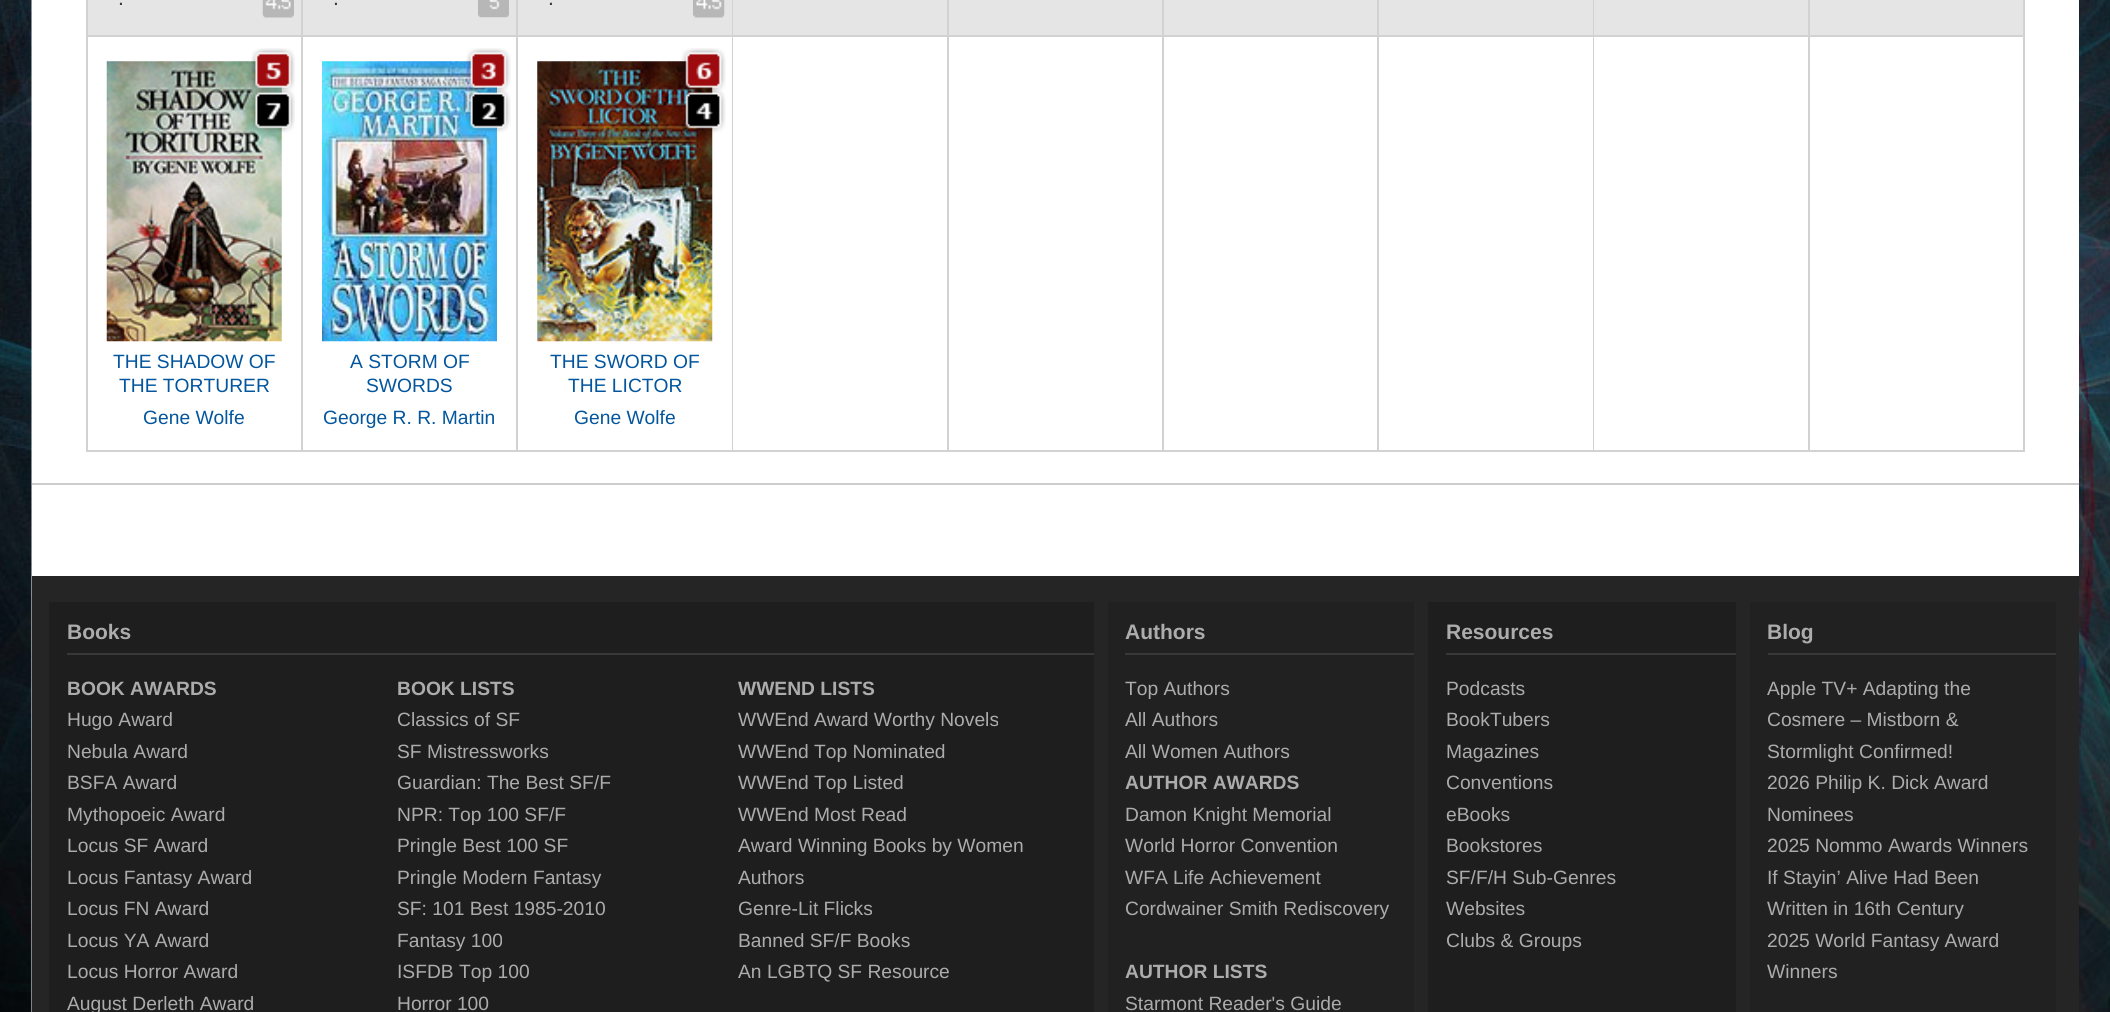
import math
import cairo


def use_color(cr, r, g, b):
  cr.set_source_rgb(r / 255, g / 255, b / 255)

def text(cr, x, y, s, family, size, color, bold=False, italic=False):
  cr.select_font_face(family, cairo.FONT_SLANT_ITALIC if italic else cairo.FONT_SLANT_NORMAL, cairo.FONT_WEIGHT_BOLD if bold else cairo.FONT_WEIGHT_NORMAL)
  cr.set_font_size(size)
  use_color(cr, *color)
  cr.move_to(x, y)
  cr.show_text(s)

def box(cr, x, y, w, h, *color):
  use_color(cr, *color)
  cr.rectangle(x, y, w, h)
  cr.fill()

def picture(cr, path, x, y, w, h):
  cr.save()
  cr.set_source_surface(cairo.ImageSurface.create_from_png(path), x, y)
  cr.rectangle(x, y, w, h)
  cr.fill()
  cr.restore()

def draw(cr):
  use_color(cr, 255, 255, 255)
  cr.paint()
  picture(cr, "img_01.png", 0, 0, 2110, 1012)
  picture(cr, "img_02.png", 31, 0, 1, 1012)
  box(cr, 32, 0, 2047, 483, 255, 255, 255)
  box(cr, 86, 0, 1939, 452, 210, 210, 210)
  box(cr, 88, 0, 213, 35, 229, 229, 229)
  picture(cr, "img_03.png", 262, 0, 32, 18)
  box(cr, 303, 0, 213, 35, 229, 229, 229)
  picture(cr, "img_04.png", 478, 0, 31, 18)
  box(cr, 518, 0, 214, 35, 229, 229, 229)
  picture(cr, "img_05.png", 693, 0, 32, 18)
  box(cr, 733, 0, 214, 35, 229, 229, 229)
  box(cr, 949, 0, 213, 35, 229, 229, 229)
  box(cr, 1164, 0, 213, 35, 229, 229, 229)
  box(cr, 1379, 0, 214, 35, 229, 229, 229)
  box(cr, 1594, 0, 214, 35, 229, 229, 229)
  box(cr, 1810, 0, 213, 35, 229, 229, 229)
  box(cr, 88, 37, 213, 413, 255, 255, 255)
  picture(cr, "img_07.png", 106, 61, 176, 281)
  picture(cr, "img_06.png", 251, 48, 44, 44)
  picture(cr, "img_08.png", 251, 88, 44, 45)
  box(cr, 303, 37, 213, 413, 255, 255, 255)
  picture(cr, "img_10.png", 322, 61, 175, 281)
  picture(cr, "img_09.png", 466, 48, 45, 44)
  picture(cr, "img_11.png", 466, 88, 45, 45)
  box(cr, 518, 37, 214, 413, 255, 255, 255)
  picture(cr, "img_13.png", 537, 61, 176, 281)
  picture(cr, "img_12.png", 681, 48, 45, 44)
  picture(cr, "img_14.png", 682, 88, 44, 45)
  box(cr, 733, 37, 214, 413, 255, 255, 255)
  box(cr, 949, 37, 213, 413, 255, 255, 255)
  box(cr, 1164, 37, 213, 413, 255, 255, 255)
  box(cr, 1379, 37, 214, 413, 255, 255, 255)
  box(cr, 1594, 37, 214, 413, 255, 255, 255)
  box(cr, 1810, 37, 213, 413, 255, 255, 255)
  box(cr, 32, 576, 2047, 436, 37, 37, 37)
  box(cr, 32, 485, 2047, 91, 255, 255, 255)
  box(cr, 32, 483, 2047, 2, 204, 204, 204)
  box(cr, 49, 602, 1045, 410, 30, 30, 30)
  box(cr, 67, 653, 1027, 2, 56, 56, 56)
  box(cr, 1108, 602, 306, 410, 33, 33, 33)
  box(cr, 1125, 653, 289, 2, 56, 56, 56)
  box(cr, 1428, 602, 308, 410, 30, 30, 30)
  box(cr, 1446, 653, 290, 2, 56, 56, 56)
  box(cr, 1750, 602, 306, 410, 33, 33, 33)
  box(cr, 1768, 653, 288, 2, 56, 56, 56)
  text(cr, 118, 5, ".", "Liberation Sans", 21, (54, 54, 54))
  text(cr, 333, 5, ".", "Liberation Sans", 21, (54, 54, 54))
  text(cr, 548, 5, ".", "Liberation Sans", 21, (54, 54, 54))
  text(cr, 113, 368, "THE SHADOW OF", "Liberation Sans", 19.25, (3, 86, 157))
  text(cr, 119, 392, "THE TORTURER", "Liberation Sans", 19.25, (3, 86, 157))
  text(cr, 143, 424, "Gene Wolfe", "Liberation Sans", 19.25, (3, 86, 157))
  text(cr, 350, 368, "A STORM OF", "Liberation Sans", 19.25, (3, 86, 157))
  text(cr, 366, 392, "SWORDS", "Liberation Sans", 19.25, (3, 86, 157))
  text(cr, 323, 424, "George R. R. Martin", "Liberation Sans", 19.25, (3, 86, 157))
  text(cr, 550, 368, "THE SWORD OF", "Liberation Sans", 19.25, (3, 86, 157))
  text(cr, 568, 392, "THE LICTOR", "Liberation Sans", 19.25, (3, 86, 157))
  text(cr, 574, 424, "Gene Wolfe", "Liberation Sans", 19.25, (3, 86, 157))
  text(cr, 67, 639, "Books", "Liberation Sans", 21, (172, 172, 172), bold=True)
  text(cr, 67, 695, "BOOK AWARDS", "Liberation Sans", 19.25, (172, 172, 172), bold=True)
  text(cr, 67, 726, "Hugo Award", "Liberation Sans", 19.25, (172, 172, 172))
  text(cr, 67, 758, "Nebula Award", "Liberation Sans", 19.25, (172, 172, 172))
  text(cr, 67, 789, "BSFA Award", "Liberation Sans", 19.25, (172, 172, 172))
  text(cr, 67, 821, "Mythopoeic Award", "Liberation Sans", 19.25, (172, 172, 172))
  text(cr, 67, 852, "Locus SF Award", "Liberation Sans", 19.25, (172, 172, 172))
  text(cr, 67, 884, "Locus Fantasy Award", "Liberation Sans", 19.25, (172, 172, 172))
  text(cr, 67, 915, "Locus FN Award", "Liberation Sans", 19.25, (172, 172, 172))
  text(cr, 67, 947, "Locus YA Award", "Liberation Sans", 19.25, (172, 172, 172))
  text(cr, 67, 978, "Locus Horror Award", "Liberation Sans", 19.25, (172, 172, 172))
  text(cr, 67, 1010, "August Derleth Award", "Liberation Sans", 19.25, (172, 172, 172))
  text(cr, 397, 695, "BOOK LISTS", "Liberation Sans", 19.25, (172, 172, 172), bold=True)
  text(cr, 397, 726, "Classics of SF", "Liberation Sans", 19.25, (172, 172, 172))
  text(cr, 397, 758, "SF Mistressworks", "Liberation Sans", 19.25, (172, 172, 172))
  text(cr, 397, 789, "Guardian: The Best SF/F", "Liberation Sans", 19.25, (172, 172, 172))
  text(cr, 397, 821, "NPR: Top 100 SF/F", "Liberation Sans", 19.25, (172, 172, 172))
  text(cr, 397, 852, "Pringle Best 100 SF", "Liberation Sans", 19.25, (172, 172, 172))
  text(cr, 397, 884, "Pringle Modern Fantasy", "Liberation Sans", 19.25, (172, 172, 172))
  text(cr, 397, 915, "SF: 101 Best 1985-2010", "Liberation Sans", 19.25, (172, 172, 172))
  text(cr, 397, 947, "Fantasy 100", "Liberation Sans", 19.25, (172, 172, 172))
  text(cr, 397, 978, "ISFDB Top 100", "Liberation Sans", 19.25, (172, 172, 172))
  text(cr, 397, 1010, "Horror 100", "Liberation Sans", 19.25, (172, 172, 172))
  text(cr, 738, 695, "WWEND LISTS", "Liberation Sans", 19.25, (172, 172, 172), bold=True)
  text(cr, 738, 726, "WWEnd Award Worthy Novels", "Liberation Sans", 19.25, (172, 172, 172))
  text(cr, 738, 758, "WWEnd Top Nominated", "Liberation Sans", 19.25, (172, 172, 172))
  text(cr, 738, 789, "WWEnd Top Listed", "Liberation Sans", 19.25, (172, 172, 172))
  text(cr, 738, 821, "WWEnd Most Read", "Liberation Sans", 19.25, (172, 172, 172))
  text(cr, 738, 852, "Award Winning Books by Women", "Liberation Sans", 19.25, (172, 172, 172))
  text(cr, 738, 884, "Authors", "Liberation Sans", 19.25, (172, 172, 172))
  text(cr, 738, 915, "Genre-Lit Flicks", "Liberation Sans", 19.25, (172, 172, 172))
  text(cr, 738, 947, "Banned SF/F Books", "Liberation Sans", 19.25, (172, 172, 172))
  text(cr, 738, 978, "An LGBTQ SF Resource", "Liberation Sans", 19.25, (172, 172, 172))
  text(cr, 1125, 639, "Authors", "Liberation Sans", 21, (172, 172, 172), bold=True)
  text(cr, 1125, 695, "Top Authors", "Liberation Sans", 19.25, (172, 172, 172))
  text(cr, 1125, 726, "All Authors", "Liberation Sans", 19.25, (172, 172, 172))
  text(cr, 1125, 758, "All Women Authors", "Liberation Sans", 19.25, (172, 172, 172))
  text(cr, 1125, 789, "AUTHOR AWARDS", "Liberation Sans", 19.25, (172, 172, 172), bold=True)
  text(cr, 1125, 821, "Damon Knight Memorial", "Liberation Sans", 19.25, (172, 172, 172))
  text(cr, 1125, 852, "World Horror Convention", "Liberation Sans", 19.25, (172, 172, 172))
  text(cr, 1125, 884, "WFA Life Achievement", "Liberation Sans", 19.25, (172, 172, 172))
  text(cr, 1125, 915, "Cordwainer Smith Rediscovery", "Liberation Sans", 19.25, (172, 172, 172))
  text(cr, 1125, 978, "AUTHOR LISTS", "Liberation Sans", 19.25, (172, 172, 172), bold=True)
  text(cr, 1125, 1010, "Starmont Reader's Guide", "Liberation Sans", 19.25, (172, 172, 172))
  text(cr, 1446, 639, "Resources", "Liberation Sans", 21, (172, 172, 172), bold=True)
  text(cr, 1446, 695, "Podcasts", "Liberation Sans", 19.25, (172, 172, 172))
  text(cr, 1446, 726, "BookTubers", "Liberation Sans", 19.25, (172, 172, 172))
  text(cr, 1446, 758, "Magazines", "Liberation Sans", 19.25, (172, 172, 172))
  text(cr, 1446, 789, "Conventions", "Liberation Sans", 19.25, (172, 172, 172))
  text(cr, 1446, 821, "eBooks", "Liberation Sans", 19.25, (172, 172, 172))
  text(cr, 1446, 852, "Bookstores", "Liberation Sans", 19.25, (172, 172, 172))
  text(cr, 1446, 884, "SF/F/H Sub-Genres", "Liberation Sans", 19.25, (172, 172, 172))
  text(cr, 1446, 915, "Websites", "Liberation Sans", 19.25, (172, 172, 172))
  text(cr, 1446, 947, "Clubs & Groups", "Liberation Sans", 19.25, (172, 172, 172))
  text(cr, 1767, 639, "Blog", "Liberation Sans", 21, (172, 172, 172), bold=True)
  text(cr, 1767, 695, "Apple TV+ Adapting the", "Liberation Sans", 19.25, (172, 172, 172))
  text(cr, 1767, 726, "Cosmere – Mistborn &", "Liberation Sans", 19.25, (172, 172, 172))
  text(cr, 1767, 758, "Stormlight Confirmed!", "Liberation Sans", 19.25, (172, 172, 172))
  text(cr, 1767, 789, "2026 Philip K. Dick Award", "Liberation Sans", 19.25, (172, 172, 172))
  text(cr, 1767, 821, "Nominees", "Liberation Sans", 19.25, (172, 172, 172))
  text(cr, 1767, 852, "2025 Nommo Awards Winners", "Liberation Sans", 19.25, (172, 172, 172))
  text(cr, 1767, 884, "If Stayin’ Alive Had Been", "Liberation Sans", 19.25, (172, 172, 172))
  text(cr, 1767, 915, "Written in 16th Century", "Liberation Sans", 19.25, (172, 172, 172))
  text(cr, 1767, 947, "2025 World Fantasy Award", "Liberation Sans", 19.25, (172, 172, 172))
  text(cr, 1767, 978, "Winners", "Liberation Sans", 19.25, (172, 172, 172))


surface = cairo.ImageSurface(cairo.FORMAT_RGB24, 2110, 1012)
cr = cairo.Context(surface)
options = cairo.FontOptions()
options.set_hint_metrics(cairo.HINT_METRICS_OFF)
options.set_hint_style(cairo.HINT_STYLE_NONE)
cr.set_font_options(options)
cr.set_miter_limit(4)
draw(cr)
surface.write_to_png("out.png")
